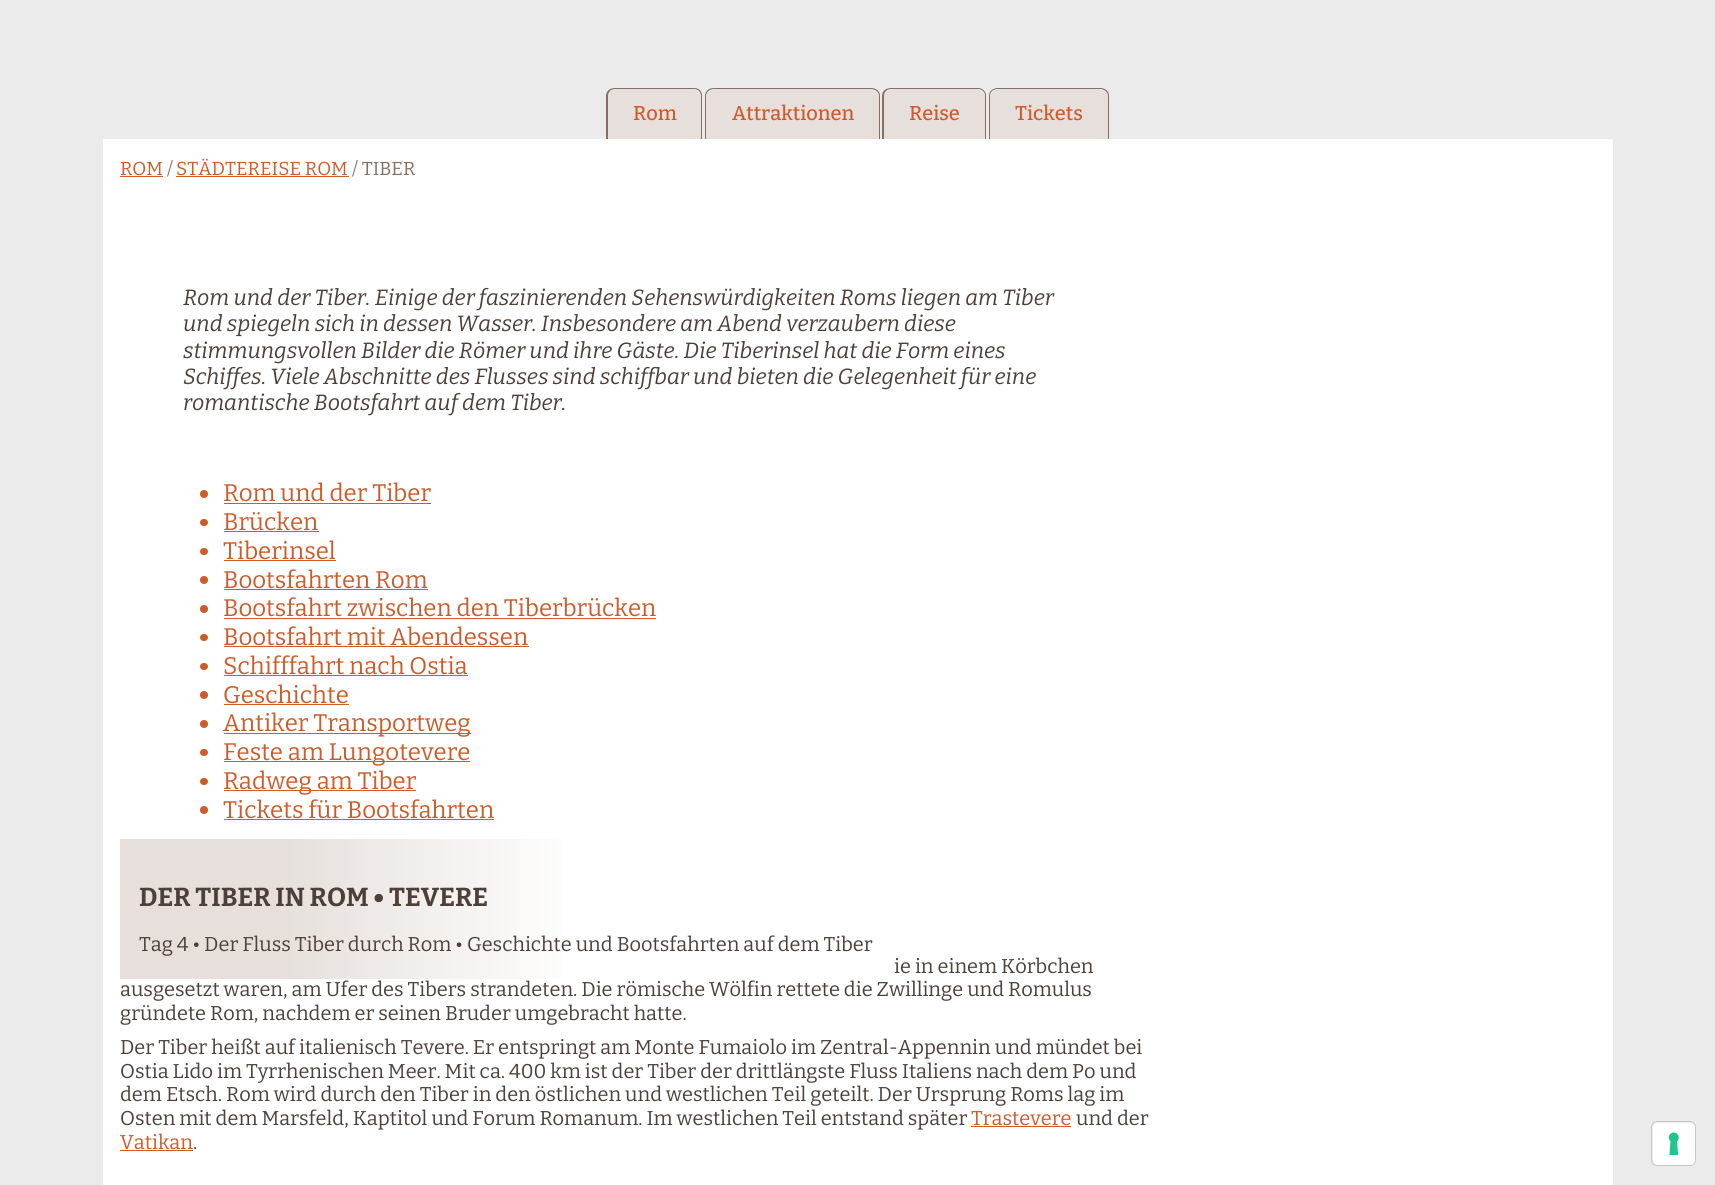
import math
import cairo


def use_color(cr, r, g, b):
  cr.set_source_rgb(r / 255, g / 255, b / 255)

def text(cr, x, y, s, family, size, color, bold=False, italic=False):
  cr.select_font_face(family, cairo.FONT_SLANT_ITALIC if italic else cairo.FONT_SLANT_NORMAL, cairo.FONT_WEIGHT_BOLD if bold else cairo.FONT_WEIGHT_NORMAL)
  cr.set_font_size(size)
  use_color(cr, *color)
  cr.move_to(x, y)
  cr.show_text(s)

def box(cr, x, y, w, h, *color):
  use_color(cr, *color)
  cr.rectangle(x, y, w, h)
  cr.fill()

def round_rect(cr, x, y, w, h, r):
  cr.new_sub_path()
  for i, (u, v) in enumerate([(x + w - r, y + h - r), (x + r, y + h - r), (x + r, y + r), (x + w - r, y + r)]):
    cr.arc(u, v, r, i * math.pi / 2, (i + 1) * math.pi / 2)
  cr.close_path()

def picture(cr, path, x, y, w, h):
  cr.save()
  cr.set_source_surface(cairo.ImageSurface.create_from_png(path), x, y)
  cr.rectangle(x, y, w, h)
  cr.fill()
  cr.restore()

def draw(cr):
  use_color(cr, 235, 235, 235)
  cr.paint()
  use_color(cr, 133, 111, 98)
  cr.set_fill_rule(cairo.FILL_RULE_EVEN_ODD)
  cr.new_path()
  cr.move_to(615, 88)
  cr.line_to(694, 88)
  cr.curve_to(699, 88, 702, 91, 702, 96)
  cr.line_to(702, 139)
  cr.line_to(606, 139)
  cr.line_to(606, 96)
  cr.curve_to(606, 91, 610, 88, 615, 88)
  cr.close_path()
  cr.move_to(615, 89)
  cr.line_to(694, 89)
  cr.curve_to(698, 89, 701, 92, 701, 96)
  cr.line_to(701, 139)
  cr.line_to(608, 139)
  cr.line_to(608, 96)
  cr.curve_to(608, 92, 611, 89, 615, 89)
  cr.close_path()
  cr.fill()
  use_color(cr, 230, 223, 219)
  cr.new_path()
  cr.move_to(618, 89)
  cr.line_to(691, 89)
  cr.curve_to(696.5, 89, 701, 93.5, 701, 99)
  cr.line_to(701, 139)
  cr.line_to(608, 139)
  cr.line_to(608, 99)
  cr.curve_to(608, 93.5, 612.5, 89, 618, 89)
  cr.close_path()
  cr.fill()
  use_color(cr, 133, 111, 98)
  cr.new_path()
  cr.move_to(714, 88)
  cr.line_to(871, 88)
  cr.curve_to(876, 88, 880, 91, 880, 96)
  cr.line_to(880, 139)
  cr.line_to(705, 139)
  cr.line_to(705, 96)
  cr.curve_to(705, 91, 709, 88, 714, 88)
  cr.close_path()
  cr.move_to(714, 89)
  cr.line_to(871, 89)
  cr.curve_to(875, 89, 879, 92, 879, 96)
  cr.line_to(879, 139)
  cr.line_to(706, 139)
  cr.line_to(706, 96)
  cr.curve_to(706, 92, 710, 89, 714, 89)
  cr.close_path()
  cr.fill()
  use_color(cr, 230, 223, 219)
  cr.new_path()
  cr.move_to(716, 89)
  cr.line_to(869, 89)
  cr.curve_to(874.5, 89, 879, 93.5, 879, 99)
  cr.line_to(879, 139)
  cr.line_to(706, 139)
  cr.line_to(706, 99)
  cr.curve_to(706, 93.5, 710.5, 89, 716, 89)
  cr.close_path()
  cr.fill()
  use_color(cr, 133, 111, 98)
  cr.new_path()
  cr.move_to(891, 88)
  cr.line_to(978, 88)
  cr.curve_to(982, 88, 986, 91, 986, 96)
  cr.line_to(986, 139)
  cr.line_to(882, 139)
  cr.line_to(882, 96)
  cr.curve_to(882, 91, 886, 88, 891, 88)
  cr.close_path()
  cr.move_to(891, 89)
  cr.line_to(978, 89)
  cr.curve_to(982, 89, 985, 92, 985, 96)
  cr.line_to(985, 139)
  cr.line_to(884, 139)
  cr.line_to(884, 96)
  cr.curve_to(884, 92, 887, 89, 891, 89)
  cr.close_path()
  cr.fill()
  use_color(cr, 230, 223, 219)
  cr.new_path()
  cr.move_to(894, 89)
  cr.line_to(975, 89)
  cr.curve_to(980.5, 89, 985, 93.5, 985, 99)
  cr.line_to(985, 139)
  cr.line_to(884, 139)
  cr.line_to(884, 99)
  cr.curve_to(884, 93.5, 888.5, 89, 894, 89)
  cr.close_path()
  cr.fill()
  use_color(cr, 133, 111, 98)
  cr.new_path()
  cr.move_to(998, 88)
  cr.line_to(1100, 88)
  cr.curve_to(1105, 88, 1109, 91, 1109, 96)
  cr.line_to(1109, 139)
  cr.line_to(989, 139)
  cr.line_to(989, 96)
  cr.curve_to(989, 91, 993, 88, 998, 88)
  cr.close_path()
  cr.move_to(998, 89)
  cr.line_to(1100, 89)
  cr.curve_to(1104, 89, 1108, 92, 1108, 96)
  cr.line_to(1108, 139)
  cr.line_to(990, 139)
  cr.line_to(990, 96)
  cr.curve_to(990, 92, 993, 89, 998, 89)
  cr.close_path()
  cr.fill()
  use_color(cr, 230, 223, 219)
  cr.new_path()
  cr.move_to(1000, 89)
  cr.line_to(1098, 89)
  cr.curve_to(1103.5, 89, 1108, 93.5, 1108, 99)
  cr.line_to(1108, 139)
  cr.line_to(990, 139)
  cr.line_to(990, 99)
  cr.curve_to(990, 93.5, 994.5, 89, 1000, 89)
  cr.close_path()
  cr.fill()
  box(cr, 103, 139, 1510, 1046, 255, 255, 255)
  box(cr, 120, 176, 43, 1, 204, 92, 43)
  box(cr, 176, 176, 173, 1, 204, 92, 43)
  cr.arc(204, 494, 4, 0, 2 * math.pi)
  cr.fill()
  box(cr, 224, 503, 207, 1, 204, 92, 43)
  round_rect(cr, 200, 519, 8, 7, 3.5)
  cr.fill()
  box(cr, 224, 531, 95, 1, 204, 92, 43)
  round_rect(cr, 200, 548, 8, 7, 3.5)
  cr.fill()
  box(cr, 224, 560, 112, 1, 204, 92, 43)
  cr.arc(204, 580, 4, 0, 2 * math.pi)
  cr.fill()
  box(cr, 224, 589, 204, 1, 204, 92, 43)
  cr.arc(204, 609, 4, 0, 2 * math.pi)
  cr.fill()
  box(cr, 224, 618, 432, 1, 204, 92, 43)
  round_rect(cr, 200, 634, 8, 7, 3.5)
  cr.fill()
  box(cr, 224, 646, 305, 1, 204, 92, 43)
  round_rect(cr, 200, 663, 8, 7, 3.5)
  cr.fill()
  box(cr, 224, 675, 244, 1, 204, 92, 43)
  cr.arc(204, 695, 4, 0, 2 * math.pi)
  cr.fill()
  box(cr, 224, 704, 125, 1, 204, 92, 43)
  cr.arc(204, 724, 4, 0, 2 * math.pi)
  cr.fill()
  box(cr, 224, 733, 247, 1, 204, 92, 43)
  round_rect(cr, 200, 749, 8, 7, 3.5)
  cr.fill()
  box(cr, 224, 761, 246, 1, 204, 92, 43)
  round_rect(cr, 200, 778, 8, 7, 3.5)
  cr.fill()
  box(cr, 224, 790, 192, 1, 204, 92, 43)
  cr.arc(204, 810, 4, 0, 2 * math.pi)
  cr.fill()
  box(cr, 224, 819, 270, 1, 204, 92, 43)
  box(cr, 971, 1126, 100, 1, 204, 92, 43)
  box(cr, 120, 1150, 73, 1, 204, 92, 43)
  gradient = cairo.LinearGradient(120, 909, 891, 909)
  gradient.add_color_stop_rgba(0.2, 0.902, 0.875, 0.859, 1)
  gradient.add_color_stop_rgba(0.6, 1, 1, 1, 1)
  cr.set_source(gradient)
  cr.rectangle(120, 839, 441, 140)
  cr.fill()
  round_rect(cr, 1651.5, 1121.5, 44, 44, 5.5)
  use_color(cr, 200, 200, 200)
  cr.set_line_width(1)
  cr.stroke()
  use_color(cr, 255, 255, 255)
  round_rect(cr, 1653, 1123, 42, 42, 5)
  cr.fill()
  picture(cr, "img_01.png", 1668, 1132, 11, 23)
  text(cr, 633, 120, "Rom", "Bitter Medium", 20, (204, 92, 43))
  text(cr, 732, 120, "Attraktionen", "Bitter Medium", 20, (204, 92, 43))
  text(cr, 909, 120, "Reise", "Bitter Medium", 20, (204, 92, 43))
  text(cr, 1015, 120, "Tickets", "Bitter Medium", 20, (204, 92, 43))
  text(cr, 120, 175, "ROM", "Bitter", 18.75, (204, 92, 43))
  text(cr, 167, 175, "/", "Bitter", 18.75, (133, 111, 98))
  text(cr, 176, 175, "STÄDTEREISE ROM", "Bitter", 18.75, (204, 92, 43))
  text(cr, 352, 175, "/ TIBER", "Bitter", 18.75, (133, 111, 98))
  text(cr, 183, 305, "Rom und der Tiber. Einige der faszinierenden Sehenswürdigkeiten Roms liegen am Tiber", "Bitter", 22, (77, 64, 56), italic=True)
  text(cr, 183, 331, "und spiegeln sich in dessen Wasser. Insbesondere am Abend verzaubern diese", "Bitter", 22, (77, 64, 56), italic=True)
  text(cr, 183, 358, "stimmungsvollen Bilder die Römer und ihre Gäste. Die Tiberinsel hat die Form eines", "Bitter", 22, (77, 64, 56), italic=True)
  text(cr, 183, 384, "Schiffes. Viele Abschnitte des Flusses sind schiffbar und bieten die Gelegenheit für eine", "Bitter", 22, (77, 64, 56), italic=True)
  text(cr, 183, 410, "romantische Bootsfahrt auf dem Tiber.", "Bitter", 22, (77, 64, 56), italic=True)
  text(cr, 223, 501, "Rom und der Tiber", "Bitter", 24, (204, 92, 43))
  text(cr, 223, 530, "Brücken", "Bitter", 24, (204, 92, 43))
  text(cr, 223, 559, "Tiberinsel", "Bitter", 24, (204, 92, 43))
  text(cr, 223, 588, "Bootsfahrten Rom", "Bitter", 24, (204, 92, 43))
  text(cr, 223, 616, "Bootsfahrt zwischen den Tiberbrücken", "Bitter", 24, (204, 92, 43))
  text(cr, 223, 645, "Bootsfahrt mit Abendessen", "Bitter", 24, (204, 92, 43))
  text(cr, 223, 674, "Schifffahrt nach Ostia", "Bitter", 24, (204, 92, 43))
  text(cr, 223, 703, "Geschichte", "Bitter", 24, (204, 92, 43))
  text(cr, 223, 731, "Antiker Transportweg", "Bitter", 24, (204, 92, 43))
  text(cr, 223, 760, "Feste am Lungotevere", "Bitter", 24, (204, 92, 43))
  text(cr, 223, 789, "Radweg am Tiber", "Bitter", 24, (204, 92, 43))
  text(cr, 223, 818, "Tickets für Bootsfahrten", "Bitter", 24, (204, 92, 43))
  text(cr, 894, 973, "ie in einem Körbchen", "Bitter", 20, (77, 64, 56))
  text(cr, 120, 996, "ausgesetzt waren, am Ufer des Tibers strandeten. Die römische Wölfin rettete die Zwillinge und Romulus", "Bitter", 20, (77, 64, 56))
  text(cr, 120, 1020, "gründete Rom, nachdem er seinen Bruder umgebracht hatte.", "Bitter", 20, (77, 64, 56))
  text(cr, 120, 1054, "Der Tiber heißt auf italienisch Tevere. Er entspringt am Monte Fumaiolo im Zentral-Appennin und mündet bei", "Bitter", 20, (77, 64, 56))
  text(cr, 120, 1078, "Ostia Lido im Tyrrhenischen Meer. Mit ca. 400 km ist der Tiber der drittlängste Fluss Italiens nach dem Po und", "Bitter", 20, (77, 64, 56))
  text(cr, 120, 1101, "dem Etsch. Rom wird durch den Tiber in den östlichen und westlichen Teil geteilt. Der Ursprung Roms lag im", "Bitter", 20, (77, 64, 56))
  text(cr, 120, 1125, "Osten mit dem Marsfeld, Kaptitol und Forum Romanum. Im westlichen Teil entstand später", "Bitter", 20, (77, 64, 56))
  text(cr, 971, 1125, "Trastevere", "Bitter", 20, (204, 92, 43))
  text(cr, 1076, 1125, "und der", "Bitter", 20, (77, 64, 56))
  text(cr, 120, 1149, "Vatikan", "Bitter", 20, (204, 92, 43))
  text(cr, 193, 1149, ".", "Bitter", 20, (77, 64, 56))
  text(cr, 139, 906, "DER TIBER IN ROM • TEVERE", "Bitter", 26, (77, 64, 56), bold=True)
  text(cr, 139, 951, "Tag 4 • Der Fluss Tiber durch Rom • Geschichte und Bootsfahrten auf dem Tiber", "Bitter", 20, (77, 64, 56))


surface = cairo.ImageSurface(cairo.FORMAT_RGB24, 1715, 1185)
cr = cairo.Context(surface)
options = cairo.FontOptions()
options.set_hint_metrics(cairo.HINT_METRICS_OFF)
options.set_hint_style(cairo.HINT_STYLE_NONE)
cr.set_font_options(options)
cr.set_miter_limit(4)
draw(cr)
surface.write_to_png("out.png")
